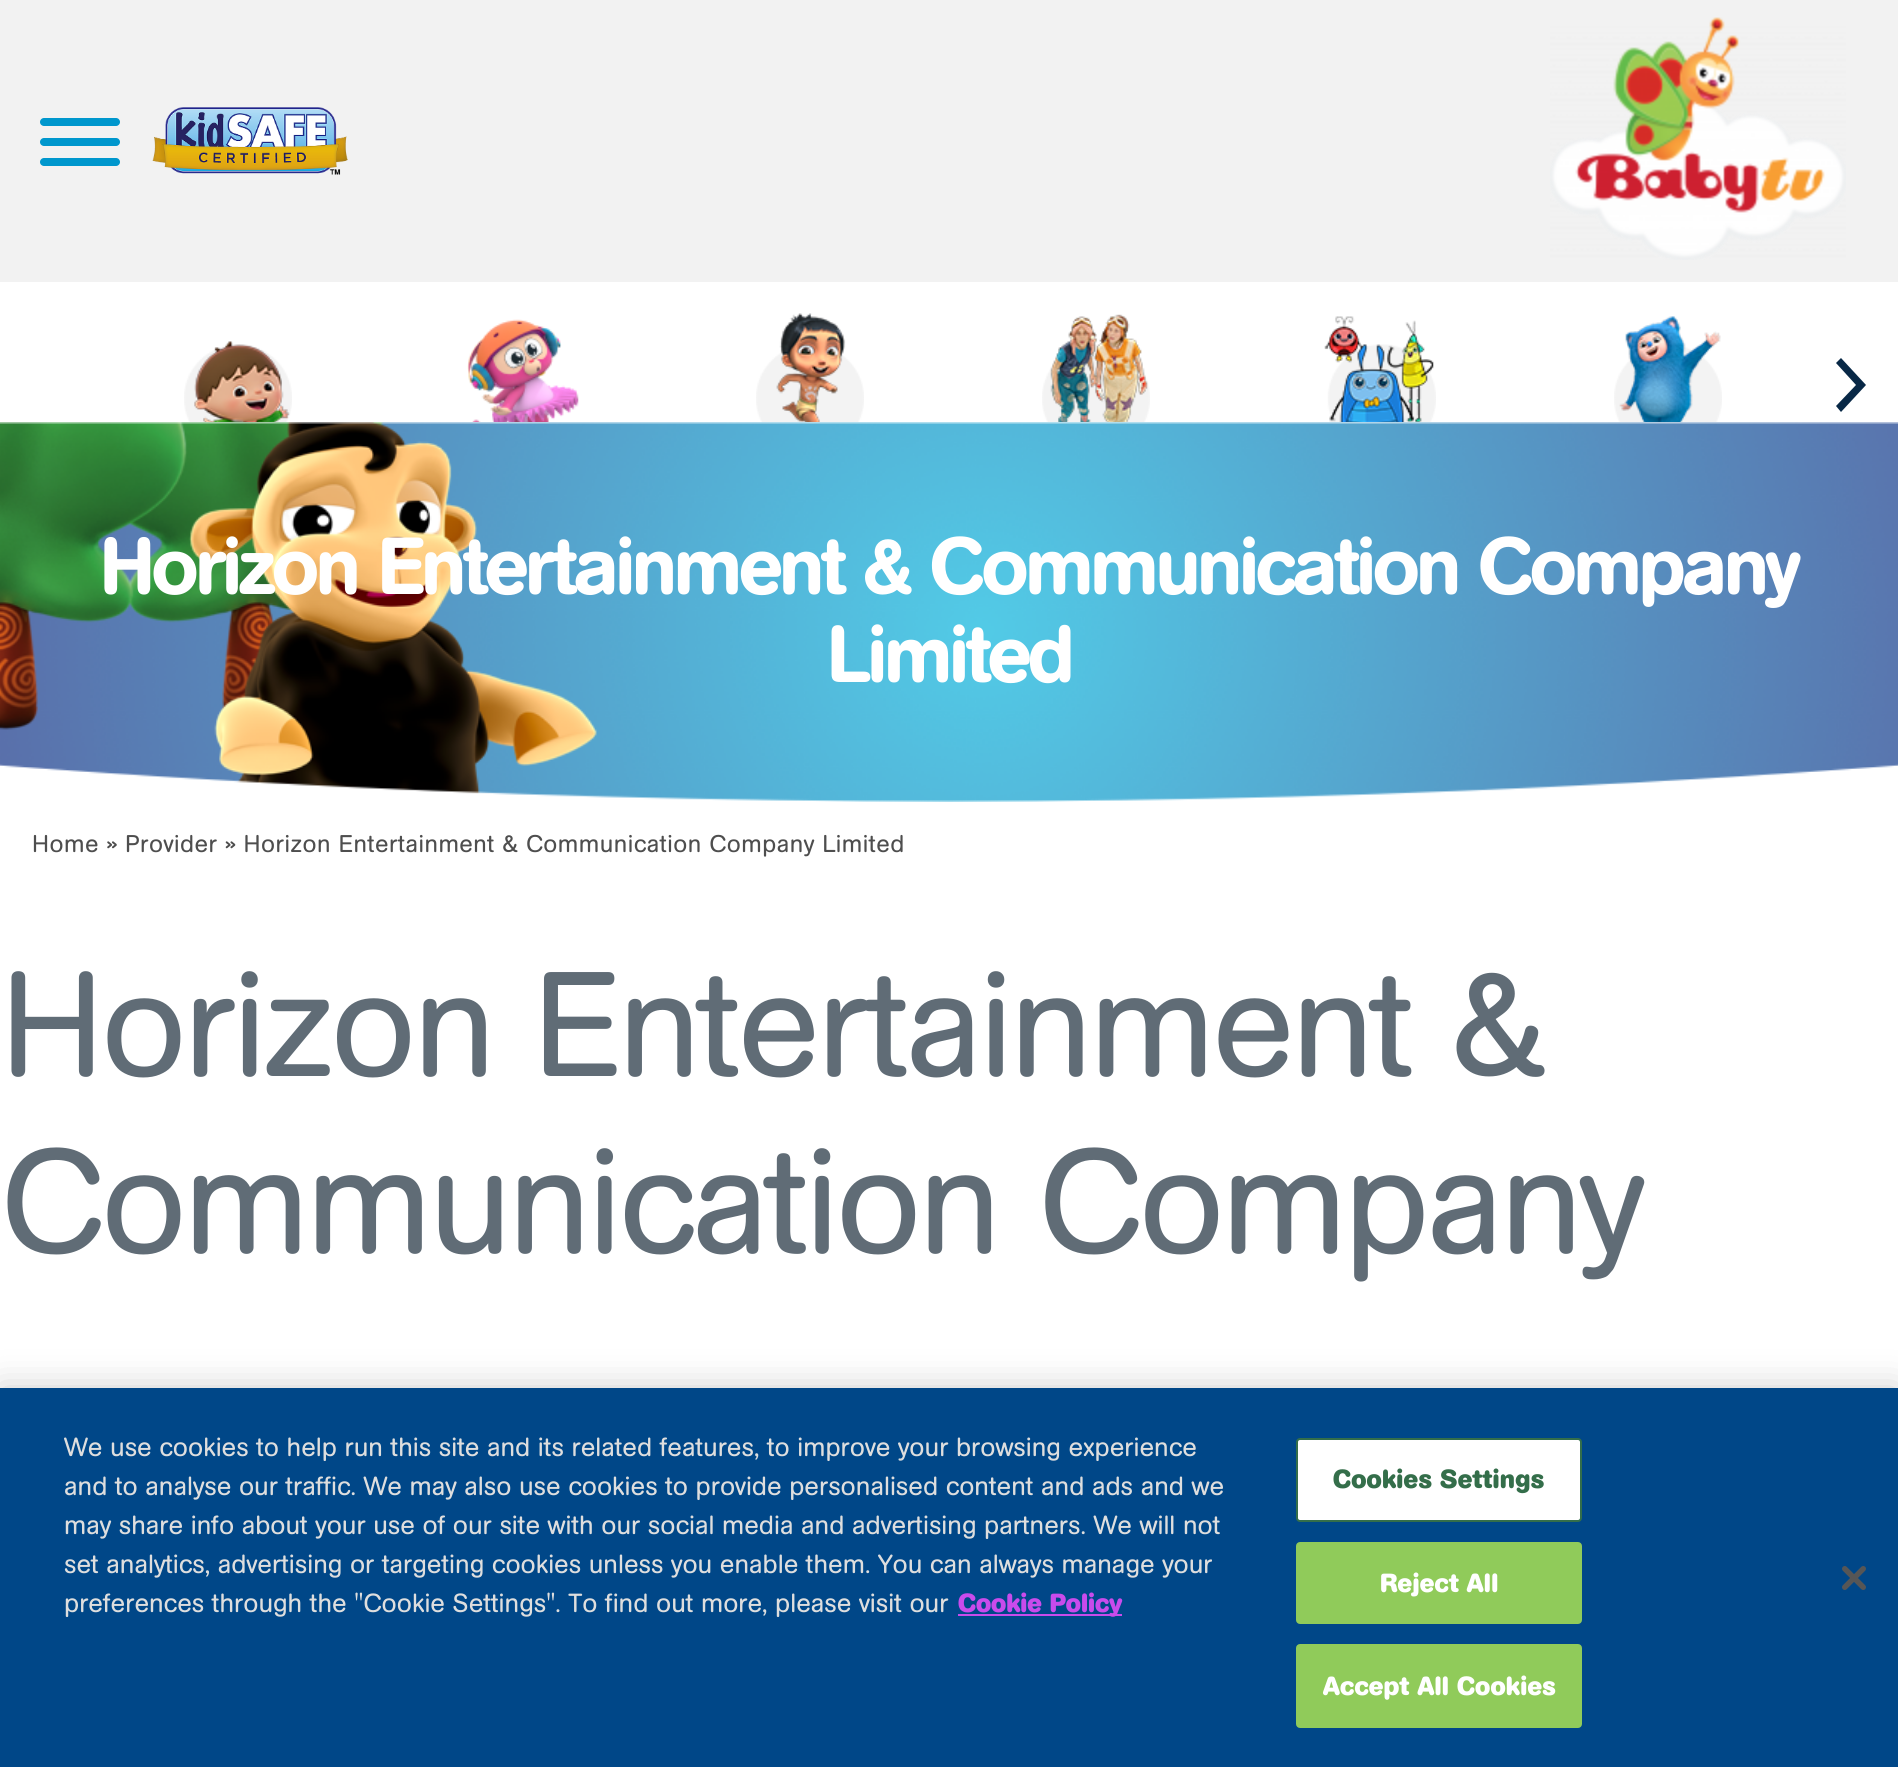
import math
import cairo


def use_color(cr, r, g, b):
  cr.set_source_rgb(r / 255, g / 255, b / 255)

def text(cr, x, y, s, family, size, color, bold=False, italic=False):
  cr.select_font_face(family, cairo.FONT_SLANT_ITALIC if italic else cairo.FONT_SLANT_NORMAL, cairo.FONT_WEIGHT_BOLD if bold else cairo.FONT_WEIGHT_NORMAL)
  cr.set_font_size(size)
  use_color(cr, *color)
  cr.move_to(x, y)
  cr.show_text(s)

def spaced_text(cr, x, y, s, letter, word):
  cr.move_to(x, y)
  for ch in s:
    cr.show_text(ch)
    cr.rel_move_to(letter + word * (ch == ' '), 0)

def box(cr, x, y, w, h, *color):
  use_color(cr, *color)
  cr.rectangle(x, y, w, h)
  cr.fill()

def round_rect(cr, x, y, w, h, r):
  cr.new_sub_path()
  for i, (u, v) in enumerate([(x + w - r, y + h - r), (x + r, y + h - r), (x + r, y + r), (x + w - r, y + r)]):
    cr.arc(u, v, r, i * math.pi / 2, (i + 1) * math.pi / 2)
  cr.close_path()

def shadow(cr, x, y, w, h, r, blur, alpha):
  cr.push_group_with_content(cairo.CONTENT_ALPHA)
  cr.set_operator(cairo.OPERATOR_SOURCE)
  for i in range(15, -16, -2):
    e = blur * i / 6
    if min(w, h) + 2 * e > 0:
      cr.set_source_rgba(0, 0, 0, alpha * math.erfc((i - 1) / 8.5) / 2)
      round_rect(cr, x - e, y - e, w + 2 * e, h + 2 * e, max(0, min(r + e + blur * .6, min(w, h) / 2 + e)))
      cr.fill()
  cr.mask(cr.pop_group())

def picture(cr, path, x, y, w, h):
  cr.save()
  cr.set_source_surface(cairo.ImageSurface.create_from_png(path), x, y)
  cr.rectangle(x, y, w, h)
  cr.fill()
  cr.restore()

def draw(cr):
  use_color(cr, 255, 255, 255)
  cr.paint()
  box(cr, 0, 0, 1898, 282, 242, 242, 242)
  use_color(cr, 0, 151, 205)
  round_rect(cr, 40, 118, 80, 8, 4)
  cr.fill()
  round_rect(cr, 40, 138, 80, 8, 4)
  cr.fill()
  round_rect(cr, 40, 158, 80, 8, 4)
  cr.fill()
  picture(cr, "img_01.png", 152, 107, 196, 68)
  picture(cr, "img_02.png", 1550, 17, 296, 243)
  picture(cr, "img_03.png", 184, 341, 108, 81)
  picture(cr, "img_04.png", 467, 319, 112, 103)
  picture(cr, "img_05.png", 756, 313, 108, 109)
  picture(cr, "img_06.png", 1042, 314, 108, 108)
  picture(cr, "img_07.png", 1324, 316, 112, 106)
  picture(cr, "img_08.png", 1614, 316, 108, 106)
  use_color(cr, 8, 40, 70)
  cr.new_path()
  cr.move_to(1836, 363)
  cr.line_to(1841, 358)
  cr.line_to(1866, 385)
  cr.line_to(1841, 412)
  cr.line_to(1836, 406)
  cr.line_to(1856, 385)
  cr.close_path()
  cr.fill()
  picture(cr, "img_09.png", 0, 422, 1898, 380)
  use_color(cr, 0, 0, 0)
  shadow(cr, 0, 1388, 1898, 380, 0, 18, 0.2)
  box(cr, 0, 1388, 1898, 379, 0, 71, 136)
  box(cr, 958, 1614, 164, 2, 201, 75, 236)
  use_color(cr, 255, 255, 255)
  round_rect(cr, 1297, 1439, 284, 82, 3)
  cr.fill_preserve()
  use_color(cr, 52, 110, 74)
  cr.stroke()
  use_color(cr, 144, 203, 90)
  round_rect(cr, 1297, 1543, 284, 80, 3)
  cr.fill_preserve()
  cr.stroke()
  round_rect(cr, 1297, 1645, 284, 82, 3)
  cr.fill_preserve()
  cr.stroke()
  picture(cr, "img_10.png", 1842, 1566, 24, 24)
  cr.select_font_face("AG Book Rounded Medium")
  cr.set_font_size(80)
  use_color(cr, 255, 255, 255)
  spaced_text(cr, 100, 594, "Horizon Entertainment & Communication Company", -3.2, 0)
  spaced_text(cr, 827, 682, "Limited", -3.2, 0)
  cr.select_font_face("AG Book Rounded")
  cr.set_font_size(24)
  use_color(cr, 78, 78, 78)
  spaced_text(cr, 32, 852, "Home » Provider » Horizon Entertainment & Communication Company Limited", 0.5, 0)
  cr.set_font_size(147.25)
  use_color(cr, 96, 108, 118)
  spaced_text(cr, 0, 1076, "Horizon Entertainment &", -3.2, 0)
  spaced_text(cr, 0, 1253, "Communication Company", -3.2, 0)
  text(cr, 64, 1456, "We use cookies to help run this site and its related features, to improve your browsing experience", "AG Book Rounded", 26, (222, 222, 222))
  text(cr, 64, 1495, "and to analyse our traffic. We may also use cookies to provide personalised content and ads and we", "AG Book Rounded", 26, (222, 222, 222))
  text(cr, 64, 1534, "may share info about your use of our site with our social media and advertising partners. We will not", "AG Book Rounded", 26, (222, 222, 222))
  text(cr, 64, 1573, "set analytics, advertising or targeting cookies unless you enable them. You can always manage your", "AG Book Rounded", 26, (222, 222, 222))
  text(cr, 64, 1612, "preferences through the \"Cookie Settings\". To find out more, please visit our", "AG Book Rounded", 26, (222, 222, 222))
  text(cr, 958, 1612, "Cookie Policy", "AG Book Rounded", 26, (201, 75, 236), bold=True)
  use_color(cr, 52, 110, 74)
  spaced_text(cr, 1333, 1488, "Cookies Settings", 0.25, 0)
  use_color(cr, 255, 255, 255)
  spaced_text(cr, 1380, 1592, "Reject All", 0.25, 0)
  spaced_text(cr, 1323, 1695, "Accept All Cookies", 0.25, 0)


surface = cairo.ImageSurface(cairo.FORMAT_RGB24, 1898, 1767)
cr = cairo.Context(surface)
options = cairo.FontOptions()
options.set_hint_metrics(cairo.HINT_METRICS_OFF)
options.set_hint_style(cairo.HINT_STYLE_NONE)
cr.set_font_options(options)
cr.set_miter_limit(4)
draw(cr)
surface.write_to_png("out.png")
